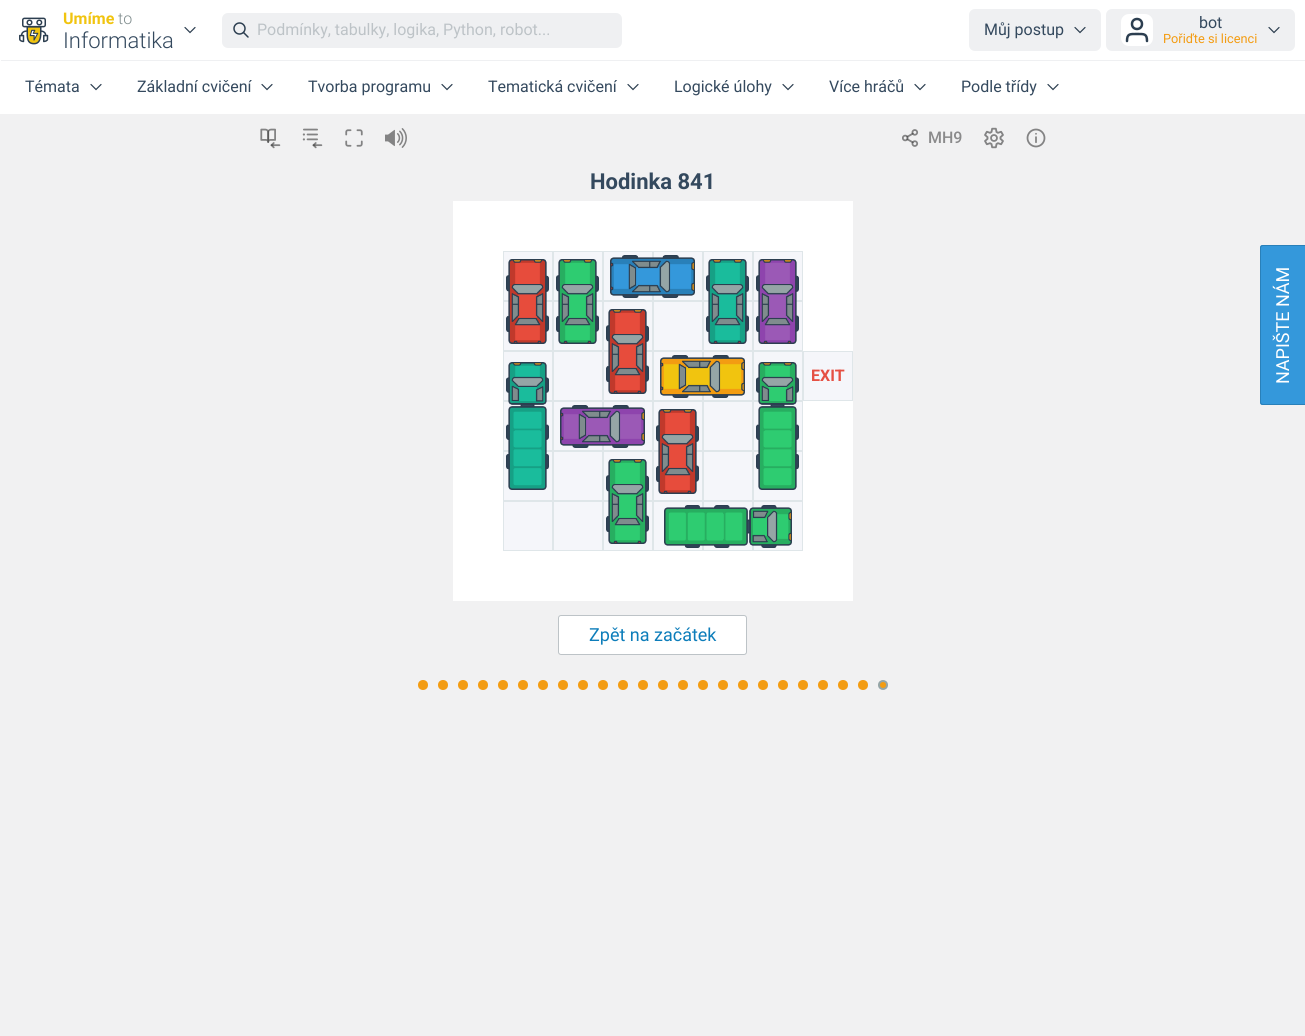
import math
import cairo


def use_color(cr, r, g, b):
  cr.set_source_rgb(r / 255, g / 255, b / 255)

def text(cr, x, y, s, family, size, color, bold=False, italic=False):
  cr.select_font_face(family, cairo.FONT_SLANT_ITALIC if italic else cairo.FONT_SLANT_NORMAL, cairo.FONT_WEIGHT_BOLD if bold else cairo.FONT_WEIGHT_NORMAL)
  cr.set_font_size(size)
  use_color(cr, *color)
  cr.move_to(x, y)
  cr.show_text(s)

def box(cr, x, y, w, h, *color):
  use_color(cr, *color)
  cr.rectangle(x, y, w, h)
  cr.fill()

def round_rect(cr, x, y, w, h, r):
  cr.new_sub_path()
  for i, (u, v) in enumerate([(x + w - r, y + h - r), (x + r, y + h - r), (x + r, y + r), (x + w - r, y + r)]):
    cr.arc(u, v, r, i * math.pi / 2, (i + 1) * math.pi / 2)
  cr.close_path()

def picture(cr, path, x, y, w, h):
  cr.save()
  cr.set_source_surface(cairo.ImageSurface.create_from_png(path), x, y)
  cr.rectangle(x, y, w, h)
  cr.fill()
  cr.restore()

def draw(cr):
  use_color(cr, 255, 255, 255)
  cr.paint()
  picture(cr, "img_01.png", 19, 17, 30, 28)
  cr.new_path()
  cr.move_to(185, 27.5)
  cr.line_to(190, 32.5)
  cr.line_to(195, 27.5)
  use_color(cr, 44, 62, 80)
  cr.set_line_width(1.2)
  cr.set_line_cap(cairo.LINE_CAP_ROUND)
  cr.stroke()
  use_color(cr, 239, 240, 242)
  round_rect(cr, 222, 13, 400, 35, 6)
  cr.fill()
  cr.arc(239.5, 28.5, 5.5, 0, 2 * math.pi)
  use_color(cr, 44, 62, 80)
  cr.set_line_width(1.5)
  cr.set_line_cap(cairo.LINE_CAP_BUTT)
  cr.stroke()
  cr.new_path()
  cr.move_to(248, 37)
  cr.line_to(243.5, 32.5)
  cr.set_line_cap(cairo.LINE_CAP_ROUND)
  cr.set_line_join(cairo.LINE_JOIN_ROUND)
  cr.stroke()
  use_color(cr, 239, 240, 242)
  round_rect(cr, 969, 9, 132, 42, 6)
  cr.fill()
  cr.new_path()
  cr.move_to(1075, 27.5)
  cr.line_to(1080, 32.5)
  cr.line_to(1085, 27.5)
  use_color(cr, 44, 62, 80)
  cr.set_line_width(1.2)
  cr.set_line_join(cairo.LINE_JOIN_MITER)
  cr.stroke()
  use_color(cr, 239, 240, 242)
  round_rect(cr, 1106, 9, 189, 42, 6)
  cr.fill()
  use_color(cr, 255, 255, 255)
  round_rect(cr, 1121, 14, 32, 32, 8)
  cr.fill()
  cr.new_path()
  cr.move_to(1147, 41)
  cr.curve_to(1147, 33.5, 1144, 34, 1137, 34)
  cr.curve_to(1130, 34, 1127, 33.5, 1127, 41)
  use_color(cr, 44, 62, 80)
  cr.set_line_width(2.5)
  cr.set_line_join(cairo.LINE_JOIN_ROUND)
  cr.stroke()
  cr.arc(1137, 24, 5, 0, 2 * math.pi)
  cr.set_line_cap(cairo.LINE_CAP_BUTT)
  cr.set_line_join(cairo.LINE_JOIN_MITER)
  cr.stroke()
  cr.new_path()
  cr.move_to(1269, 27.5)
  cr.line_to(1274, 32.5)
  cr.line_to(1279, 27.5)
  cr.set_line_width(1.2)
  cr.set_line_cap(cairo.LINE_CAP_ROUND)
  cr.stroke()
  box(cr, 1, 60, 1304, 1, 239, 240, 242)
  cr.new_path()
  cr.move_to(91, 84.5)
  cr.line_to(96, 89.5)
  cr.line_to(101, 84.5)
  use_color(cr, 44, 62, 80)
  cr.stroke()
  cr.new_path()
  cr.move_to(262, 84.5)
  cr.line_to(267, 89.5)
  cr.line_to(272, 84.5)
  cr.stroke()
  cr.new_path()
  cr.move_to(442, 84.5)
  cr.line_to(447, 89.5)
  cr.line_to(452, 84.5)
  cr.stroke()
  cr.new_path()
  cr.move_to(628, 84.5)
  cr.line_to(633, 89.5)
  cr.line_to(638, 84.5)
  cr.stroke()
  cr.new_path()
  cr.move_to(783, 84.5)
  cr.line_to(788, 89.5)
  cr.line_to(793, 84.5)
  cr.stroke()
  cr.new_path()
  cr.move_to(915, 84.5)
  cr.line_to(920, 89.5)
  cr.line_to(925, 84.5)
  cr.stroke()
  cr.new_path()
  cr.move_to(1048, 84.5)
  cr.line_to(1053, 89.5)
  cr.line_to(1058, 84.5)
  cr.stroke()
  box(cr, 0, 114, 1305, 922, 241, 241, 242)
  picture(cr, "img_02.png", 260, 128, 21, 21)
  picture(cr, "img_03.png", 302, 128, 21, 21)
  picture(cr, "img_04.png", 345, 129, 18, 18)
  picture(cr, "img_05.png", 385, 128, 22, 20)
  picture(cr, "img_06.png", 902, 129, 17, 18)
  picture(cr, "img_07.png", 984, 127, 20, 22)
  picture(cr, "img_08.png", 1026, 128, 20, 20)
  box(cr, 453, 201, 400, 50, 255, 255, 255)
  box(cr, 453, 251, 50, 350, 255, 255, 255)
  use_color(cr, 245, 246, 250)
  cr.rectangle(503.5, 251.5, 49, 49)
  cr.fill_preserve()
  use_color(cr, 223, 230, 233)
  cr.set_line_width(1)
  cr.set_line_cap(cairo.LINE_CAP_BUTT)
  cr.stroke()
  use_color(cr, 245, 246, 250)
  cr.rectangle(553.5, 251.5, 49, 49)
  cr.fill_preserve()
  use_color(cr, 223, 230, 233)
  cr.stroke()
  use_color(cr, 245, 246, 250)
  cr.rectangle(603.5, 251.5, 49, 49)
  cr.fill_preserve()
  use_color(cr, 223, 230, 233)
  cr.stroke()
  use_color(cr, 245, 246, 250)
  cr.rectangle(653.5, 251.5, 49, 49)
  cr.fill_preserve()
  use_color(cr, 223, 230, 233)
  cr.stroke()
  use_color(cr, 245, 246, 250)
  cr.rectangle(703.5, 251.5, 49, 49)
  cr.fill_preserve()
  use_color(cr, 223, 230, 233)
  cr.stroke()
  use_color(cr, 245, 246, 250)
  cr.rectangle(753.5, 251.5, 49, 49)
  cr.fill_preserve()
  use_color(cr, 223, 230, 233)
  cr.stroke()
  box(cr, 803, 251, 50, 100, 255, 255, 255)
  use_color(cr, 245, 246, 250)
  cr.rectangle(503.5, 301.5, 49, 49)
  cr.fill_preserve()
  use_color(cr, 223, 230, 233)
  cr.stroke()
  use_color(cr, 245, 246, 250)
  cr.rectangle(553.5, 301.5, 49, 49)
  cr.fill_preserve()
  use_color(cr, 223, 230, 233)
  cr.stroke()
  use_color(cr, 245, 246, 250)
  cr.rectangle(603.5, 301.5, 49, 49)
  cr.fill_preserve()
  use_color(cr, 223, 230, 233)
  cr.stroke()
  use_color(cr, 245, 246, 250)
  cr.rectangle(653.5, 301.5, 49, 49)
  cr.fill_preserve()
  use_color(cr, 223, 230, 233)
  cr.stroke()
  use_color(cr, 245, 246, 250)
  cr.rectangle(703.5, 301.5, 49, 49)
  cr.fill_preserve()
  use_color(cr, 223, 230, 233)
  cr.stroke()
  use_color(cr, 245, 246, 250)
  cr.rectangle(753.5, 301.5, 49, 49)
  cr.fill_preserve()
  use_color(cr, 223, 230, 233)
  cr.stroke()
  use_color(cr, 245, 246, 250)
  cr.rectangle(503.5, 351.5, 49, 49)
  cr.fill_preserve()
  use_color(cr, 223, 230, 233)
  cr.stroke()
  use_color(cr, 245, 246, 250)
  cr.rectangle(553.5, 351.5, 49, 49)
  cr.fill_preserve()
  use_color(cr, 223, 230, 233)
  cr.stroke()
  use_color(cr, 245, 246, 250)
  cr.rectangle(603.5, 351.5, 49, 49)
  cr.fill_preserve()
  use_color(cr, 223, 230, 233)
  cr.stroke()
  use_color(cr, 245, 246, 250)
  cr.rectangle(653.5, 351.5, 49, 49)
  cr.fill_preserve()
  use_color(cr, 223, 230, 233)
  cr.stroke()
  use_color(cr, 245, 246, 250)
  cr.rectangle(703.5, 351.5, 49, 49)
  cr.fill_preserve()
  use_color(cr, 223, 230, 233)
  cr.stroke()
  use_color(cr, 245, 246, 250)
  cr.rectangle(753.5, 351.5, 49, 49)
  cr.fill_preserve()
  use_color(cr, 223, 230, 233)
  cr.stroke()
  use_color(cr, 245, 246, 250)
  cr.rectangle(803.5, 351.5, 49, 49)
  cr.fill_preserve()
  use_color(cr, 223, 230, 233)
  cr.stroke()
  use_color(cr, 245, 246, 250)
  cr.rectangle(503.5, 401.5, 49, 49)
  cr.fill_preserve()
  use_color(cr, 223, 230, 233)
  cr.stroke()
  use_color(cr, 245, 246, 250)
  cr.rectangle(553.5, 401.5, 49, 49)
  cr.fill_preserve()
  use_color(cr, 223, 230, 233)
  cr.stroke()
  use_color(cr, 245, 246, 250)
  cr.rectangle(603.5, 401.5, 49, 49)
  cr.fill_preserve()
  use_color(cr, 223, 230, 233)
  cr.stroke()
  use_color(cr, 245, 246, 250)
  cr.rectangle(653.5, 401.5, 49, 49)
  cr.fill_preserve()
  use_color(cr, 223, 230, 233)
  cr.stroke()
  use_color(cr, 245, 246, 250)
  cr.rectangle(703.5, 401.5, 49, 49)
  cr.fill_preserve()
  use_color(cr, 223, 230, 233)
  cr.stroke()
  use_color(cr, 245, 246, 250)
  cr.rectangle(753.5, 401.5, 49, 49)
  cr.fill_preserve()
  use_color(cr, 223, 230, 233)
  cr.stroke()
  box(cr, 803, 401, 50, 150, 255, 255, 255)
  use_color(cr, 245, 246, 250)
  cr.rectangle(503.5, 451.5, 49, 49)
  cr.fill_preserve()
  use_color(cr, 223, 230, 233)
  cr.stroke()
  use_color(cr, 245, 246, 250)
  cr.rectangle(553.5, 451.5, 49, 49)
  cr.fill_preserve()
  use_color(cr, 223, 230, 233)
  cr.stroke()
  use_color(cr, 245, 246, 250)
  cr.rectangle(603.5, 451.5, 49, 49)
  cr.fill_preserve()
  use_color(cr, 223, 230, 233)
  cr.stroke()
  use_color(cr, 245, 246, 250)
  cr.rectangle(653.5, 451.5, 49, 49)
  cr.fill_preserve()
  use_color(cr, 223, 230, 233)
  cr.stroke()
  use_color(cr, 245, 246, 250)
  cr.rectangle(703.5, 451.5, 49, 49)
  cr.fill_preserve()
  use_color(cr, 223, 230, 233)
  cr.stroke()
  use_color(cr, 245, 246, 250)
  cr.rectangle(753.5, 451.5, 49, 49)
  cr.fill_preserve()
  use_color(cr, 223, 230, 233)
  cr.stroke()
  use_color(cr, 245, 246, 250)
  cr.rectangle(503.5, 501.5, 49, 49)
  cr.fill_preserve()
  use_color(cr, 223, 230, 233)
  cr.stroke()
  use_color(cr, 245, 246, 250)
  cr.rectangle(553.5, 501.5, 49, 49)
  cr.fill_preserve()
  use_color(cr, 223, 230, 233)
  cr.stroke()
  use_color(cr, 245, 246, 250)
  cr.rectangle(603.5, 501.5, 49, 49)
  cr.fill_preserve()
  use_color(cr, 223, 230, 233)
  cr.stroke()
  use_color(cr, 245, 246, 250)
  cr.rectangle(653.5, 501.5, 49, 49)
  cr.fill_preserve()
  use_color(cr, 223, 230, 233)
  cr.stroke()
  use_color(cr, 245, 246, 250)
  cr.rectangle(703.5, 501.5, 49, 49)
  cr.fill_preserve()
  use_color(cr, 223, 230, 233)
  cr.stroke()
  use_color(cr, 245, 246, 250)
  cr.rectangle(753.5, 501.5, 49, 49)
  cr.fill_preserve()
  use_color(cr, 223, 230, 233)
  cr.stroke()
  box(cr, 503, 551, 350, 50, 255, 255, 255)
  picture(cr, "img_09.png", 506, 259, 43, 85)
  picture(cr, "img_10.png", 556, 259, 43, 85)
  picture(cr, "img_11.png", 610, 255, 85, 43)
  picture(cr, "img_12.png", 706, 259, 43, 85)
  picture(cr, "img_13.png", 756, 259, 43, 85)
  picture(cr, "img_14.png", 506, 362, 43, 128)
  picture(cr, "img_09.png", 606, 309, 43, 85)
  picture(cr, "img_15.png", 660, 355, 85, 43)
  picture(cr, "img_16.png", 756, 362, 43, 128)
  picture(cr, "img_17.png", 560, 405, 85, 43)
  picture(cr, "img_09.png", 656, 409, 43, 85)
  picture(cr, "img_10.png", 606, 459, 43, 85)
  picture(cr, "img_18.png", 664, 505, 128, 43)
  round_rect(cr, 558.5, 615.5, 188, 39, 2.5)
  cr.fill_preserve()
  use_color(cr, 189, 195, 199)
  cr.stroke()
  use_color(cr, 243, 156, 18)
  cr.arc(423, 685, 5, 0, 2 * math.pi)
  cr.fill()
  cr.arc(443, 685, 5, 0, 2 * math.pi)
  cr.fill()
  cr.arc(463, 685, 5, 0, 2 * math.pi)
  cr.fill()
  cr.arc(483, 685, 5, 0, 2 * math.pi)
  cr.fill()
  cr.arc(503, 685, 5, 0, 2 * math.pi)
  cr.fill()
  cr.arc(523, 685, 5, 0, 2 * math.pi)
  cr.fill()
  cr.arc(543, 685, 5, 0, 2 * math.pi)
  cr.fill()
  cr.arc(563, 685, 5, 0, 2 * math.pi)
  cr.fill()
  cr.arc(583, 685, 5, 0, 2 * math.pi)
  cr.fill()
  cr.arc(603, 685, 5, 0, 2 * math.pi)
  cr.fill()
  cr.arc(623, 685, 5, 0, 2 * math.pi)
  cr.fill()
  cr.arc(643, 685, 5, 0, 2 * math.pi)
  cr.fill()
  cr.arc(663, 685, 5, 0, 2 * math.pi)
  cr.fill()
  cr.arc(683, 685, 5, 0, 2 * math.pi)
  cr.fill()
  cr.arc(703, 685, 5, 0, 2 * math.pi)
  cr.fill()
  cr.arc(723, 685, 5, 0, 2 * math.pi)
  cr.fill()
  cr.arc(743, 685, 5, 0, 2 * math.pi)
  cr.fill()
  cr.arc(763, 685, 5, 0, 2 * math.pi)
  cr.fill()
  cr.arc(783, 685, 5, 0, 2 * math.pi)
  cr.fill()
  cr.arc(803, 685, 5, 0, 2 * math.pi)
  cr.fill()
  cr.arc(823, 685, 5, 0, 2 * math.pi)
  cr.fill()
  cr.arc(843, 685, 5, 0, 2 * math.pi)
  cr.fill()
  cr.arc(863, 685, 5, 0, 2 * math.pi)
  cr.fill()
  cr.arc(883, 685, 4, 0, 2 * math.pi)
  cr.fill_preserve()
  use_color(cr, 149, 165, 166)
  cr.set_line_width(2)
  cr.stroke()
  use_color(cr, 52, 152, 219)
  cr.new_path()
  cr.move_to(1260, 402)
  cr.line_to(1260, 248)
  cr.curve_to(1260, 246, 1261, 245, 1263, 245)
  cr.line_to(1305, 245)
  cr.line_to(1305, 405)
  cr.line_to(1263, 405)
  cr.curve_to(1261, 405, 1260, 404, 1260, 402)
  cr.close_path()
  cr.fill()
  use_color(cr, 41, 128, 185)
  cr.set_fill_rule(cairo.FILL_RULE_EVEN_ODD)
  cr.new_path()
  cr.move_to(1260, 402)
  cr.line_to(1260, 248)
  cr.curve_to(1260, 246, 1261, 245, 1263, 245)
  cr.line_to(1305, 245)
  cr.line_to(1305, 405)
  cr.line_to(1263, 405)
  cr.curve_to(1261, 405, 1260, 404, 1260, 402)
  cr.close_path()
  cr.move_to(1261, 402)
  cr.line_to(1261, 248)
  cr.curve_to(1261, 247, 1262, 246, 1263, 246)
  cr.line_to(1305, 246)
  cr.line_to(1305, 404)
  cr.line_to(1263, 404)
  cr.curve_to(1262, 404, 1261, 403, 1261, 402)
  cr.close_path()
  cr.fill()
  text(cr, 63, 24, "Umíme", "Roboto", 16, (241, 196, 15), bold=True)
  text(cr, 118, 24, "to", "Roboto Light", 16, (127, 140, 141))
  text(cr, 63, 48, "Informatika", "Roboto Light", 22, (52, 73, 94))
  text(cr, 257, 35, "Podmínky, tabulky, logika, Python, robot...", "Roboto", 16, (189, 195, 199))
  text(cr, 984, 35, "Můj postup", "Roboto", 16, (52, 73, 94))
  text(cr, 1199, 28, "bot", "Roboto", 16, (52, 73, 94))
  text(cr, 1163, 43, "Pořiďte si licenci", "Roboto", 12.75, (243, 156, 18))
  text(cr, 25, 92, "Témata", "Roboto", 16, (52, 73, 94))
  text(cr, 137, 92, "Základní cvičení", "Roboto", 16, (52, 73, 94))
  text(cr, 308, 92, "Tvorba programu", "Roboto", 16, (52, 73, 94))
  text(cr, 488, 92, "Tematická cvičení", "Roboto", 16, (52, 73, 94))
  text(cr, 674, 92, "Logické úlohy", "Roboto", 16, (52, 73, 94))
  text(cr, 829, 92, "Více hráčů", "Roboto", 16, (52, 73, 94))
  text(cr, 961, 92, "Podle třídy", "Roboto", 16, (52, 73, 94))
  text(cr, 928, 143, "MH9", "Roboto Medium", 16, (138, 138, 139))
  text(cr, 590, 189, "Hodinka 841", "Roboto", 22, (52, 73, 94), bold=True)
  text(cr, 811, 381, "EXIT", "Roboto", 16, (229, 80, 67), bold=True)
  text(cr, 589, 641, "Zpět na začátek", "Roboto", 18, (13, 125, 186))
  cr.save()
  cr.translate(1289, 384)
  cr.rotate(-90 * math.pi / 180)
  text(cr, 0, 0, "NAPIŠTE NÁM", "Roboto", 18, (255, 255, 255))
  cr.restore()


surface = cairo.ImageSurface(cairo.FORMAT_RGB24, 1305, 1036)
cr = cairo.Context(surface)
options = cairo.FontOptions()
options.set_hint_metrics(cairo.HINT_METRICS_OFF)
options.set_hint_style(cairo.HINT_STYLE_NONE)
cr.set_font_options(options)
cr.set_miter_limit(4)
draw(cr)
surface.write_to_png("out.png")
